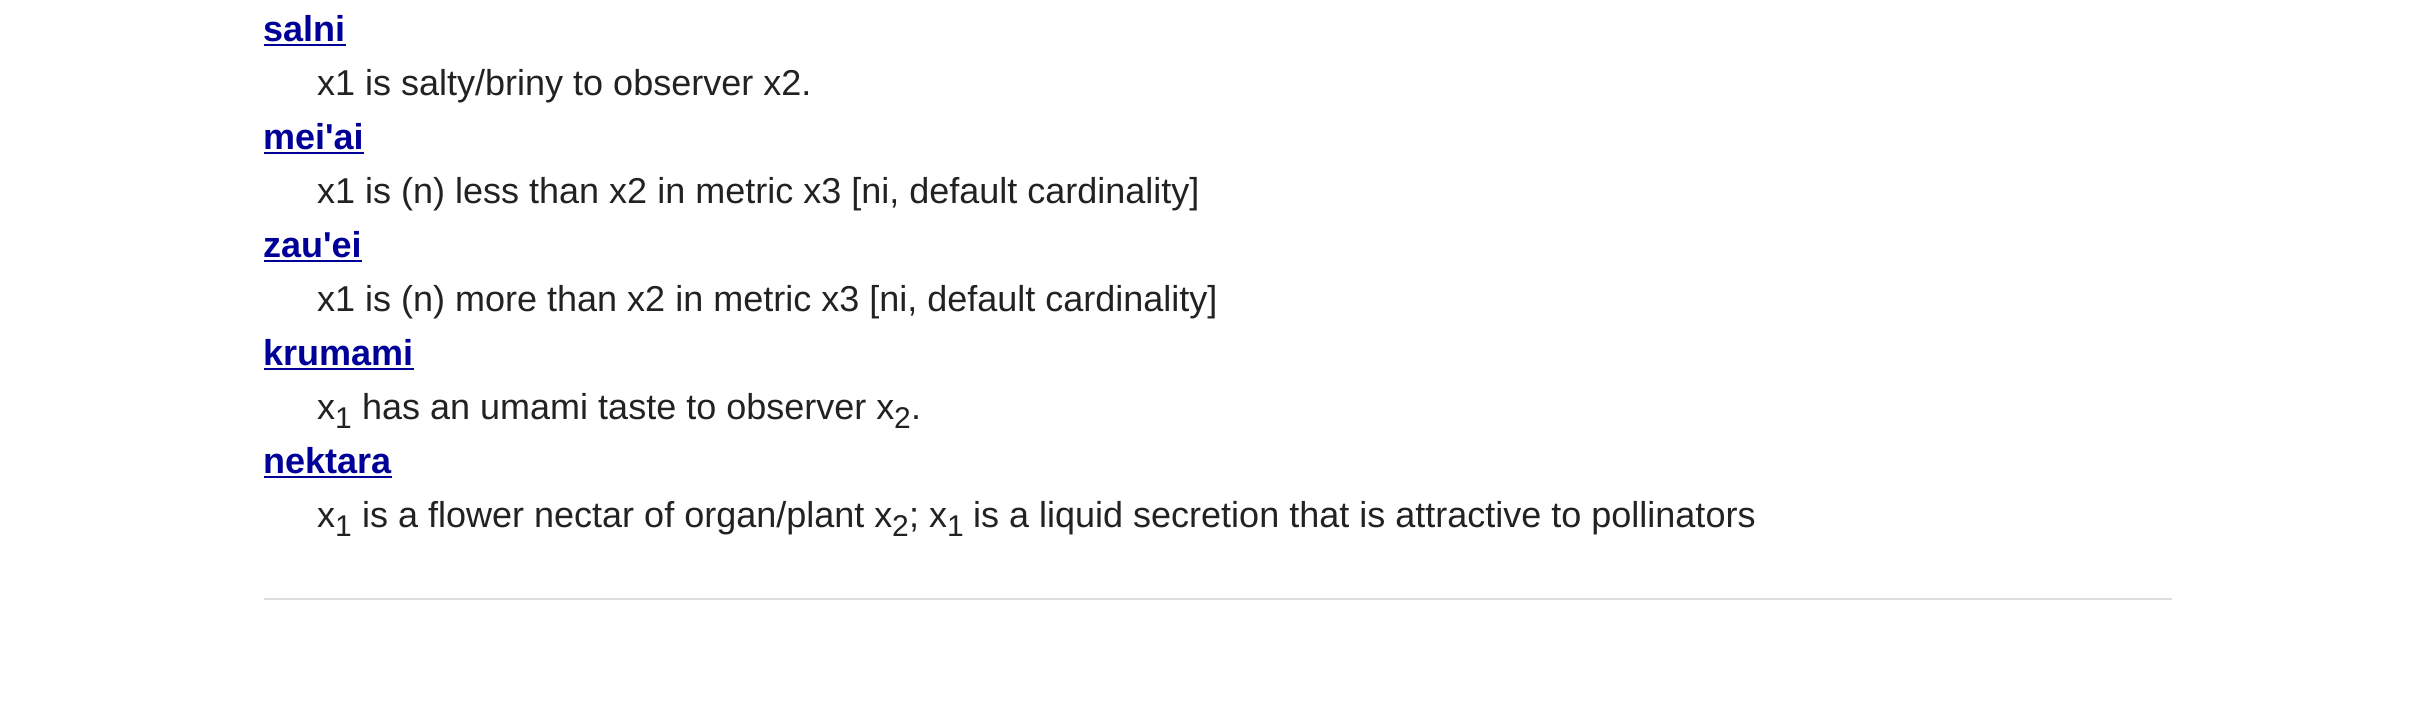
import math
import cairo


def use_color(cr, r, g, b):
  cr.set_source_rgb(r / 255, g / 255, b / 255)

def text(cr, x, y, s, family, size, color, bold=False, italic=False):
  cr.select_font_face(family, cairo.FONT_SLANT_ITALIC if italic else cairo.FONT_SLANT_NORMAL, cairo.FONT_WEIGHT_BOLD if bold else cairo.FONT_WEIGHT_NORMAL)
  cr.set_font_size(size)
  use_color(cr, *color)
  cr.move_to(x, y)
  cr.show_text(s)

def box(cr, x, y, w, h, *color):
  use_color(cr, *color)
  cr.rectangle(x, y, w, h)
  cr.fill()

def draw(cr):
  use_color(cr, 255, 255, 255)
  cr.paint()
  box(cr, 264, 44, 82, 2, 0, 0, 153)
  box(cr, 264, 152, 100, 2, 0, 0, 153)
  box(cr, 264, 260, 98, 2, 0, 0, 153)
  box(cr, 264, 368, 150, 2, 0, 0, 153)
  box(cr, 264, 476, 128, 2, 0, 0, 153)
  box(cr, 264, 598, 1908, 2, 221, 221, 221)
  text(cr, 263, 41, "salni", "Liberation Sans", 36, (0, 0, 153), bold=True)
  text(cr, 317, 95, "x1 is salty/briny to observer x2.", "Liberation Sans", 36, (34, 34, 34))
  text(cr, 263, 149, "mei'ai", "Liberation Sans", 36, (0, 0, 153), bold=True)
  text(cr, 317, 203, "x1 is (n) less than x2 in metric x3 [ni, default cardinality]", "Liberation Sans", 36, (34, 34, 34))
  text(cr, 263, 257, "zau'ei", "Liberation Sans", 36, (0, 0, 153), bold=True)
  text(cr, 317, 311, "x1 is (n) more than x2 in metric x3 [ni, default cardinality]", "Liberation Sans", 36, (34, 34, 34))
  text(cr, 263, 365, "krumami", "Liberation Sans", 36, (0, 0, 153), bold=True)
  text(cr, 317, 419, "x", "Liberation Sans", 36, (34, 34, 34))
  text(cr, 335, 428, "1", "Liberation Sans", 30, (34, 34, 34))
  text(cr, 362, 419, "has an umami taste to observer x", "Liberation Sans", 36, (34, 34, 34))
  text(cr, 894, 428, "2", "Liberation Sans", 30, (34, 34, 34))
  text(cr, 911, 419, ".", "Liberation Sans", 36, (34, 34, 34))
  text(cr, 263, 473, "nektara", "Liberation Sans", 36, (0, 0, 153), bold=True)
  text(cr, 317, 527, "x", "Liberation Sans", 36, (34, 34, 34))
  text(cr, 335, 536, "1", "Liberation Sans", 30, (34, 34, 34))
  text(cr, 362, 527, "is a flower nectar of organ/plant x", "Liberation Sans", 36, (34, 34, 34))
  text(cr, 892, 536, "2", "Liberation Sans", 30, (34, 34, 34))
  text(cr, 909, 527, "; x", "Liberation Sans", 36, (34, 34, 34))
  text(cr, 947, 536, "1", "Liberation Sans", 30, (34, 34, 34))
  text(cr, 973, 527, "is a liquid secretion that is attractive to pollinators", "Liberation Sans", 36, (34, 34, 34))


surface = cairo.ImageSurface(cairo.FORMAT_RGB24, 2434, 705)
cr = cairo.Context(surface)
options = cairo.FontOptions()
options.set_hint_metrics(cairo.HINT_METRICS_OFF)
options.set_hint_style(cairo.HINT_STYLE_NONE)
cr.set_font_options(options)
cr.set_miter_limit(4)
draw(cr)
surface.write_to_png("out.png")
